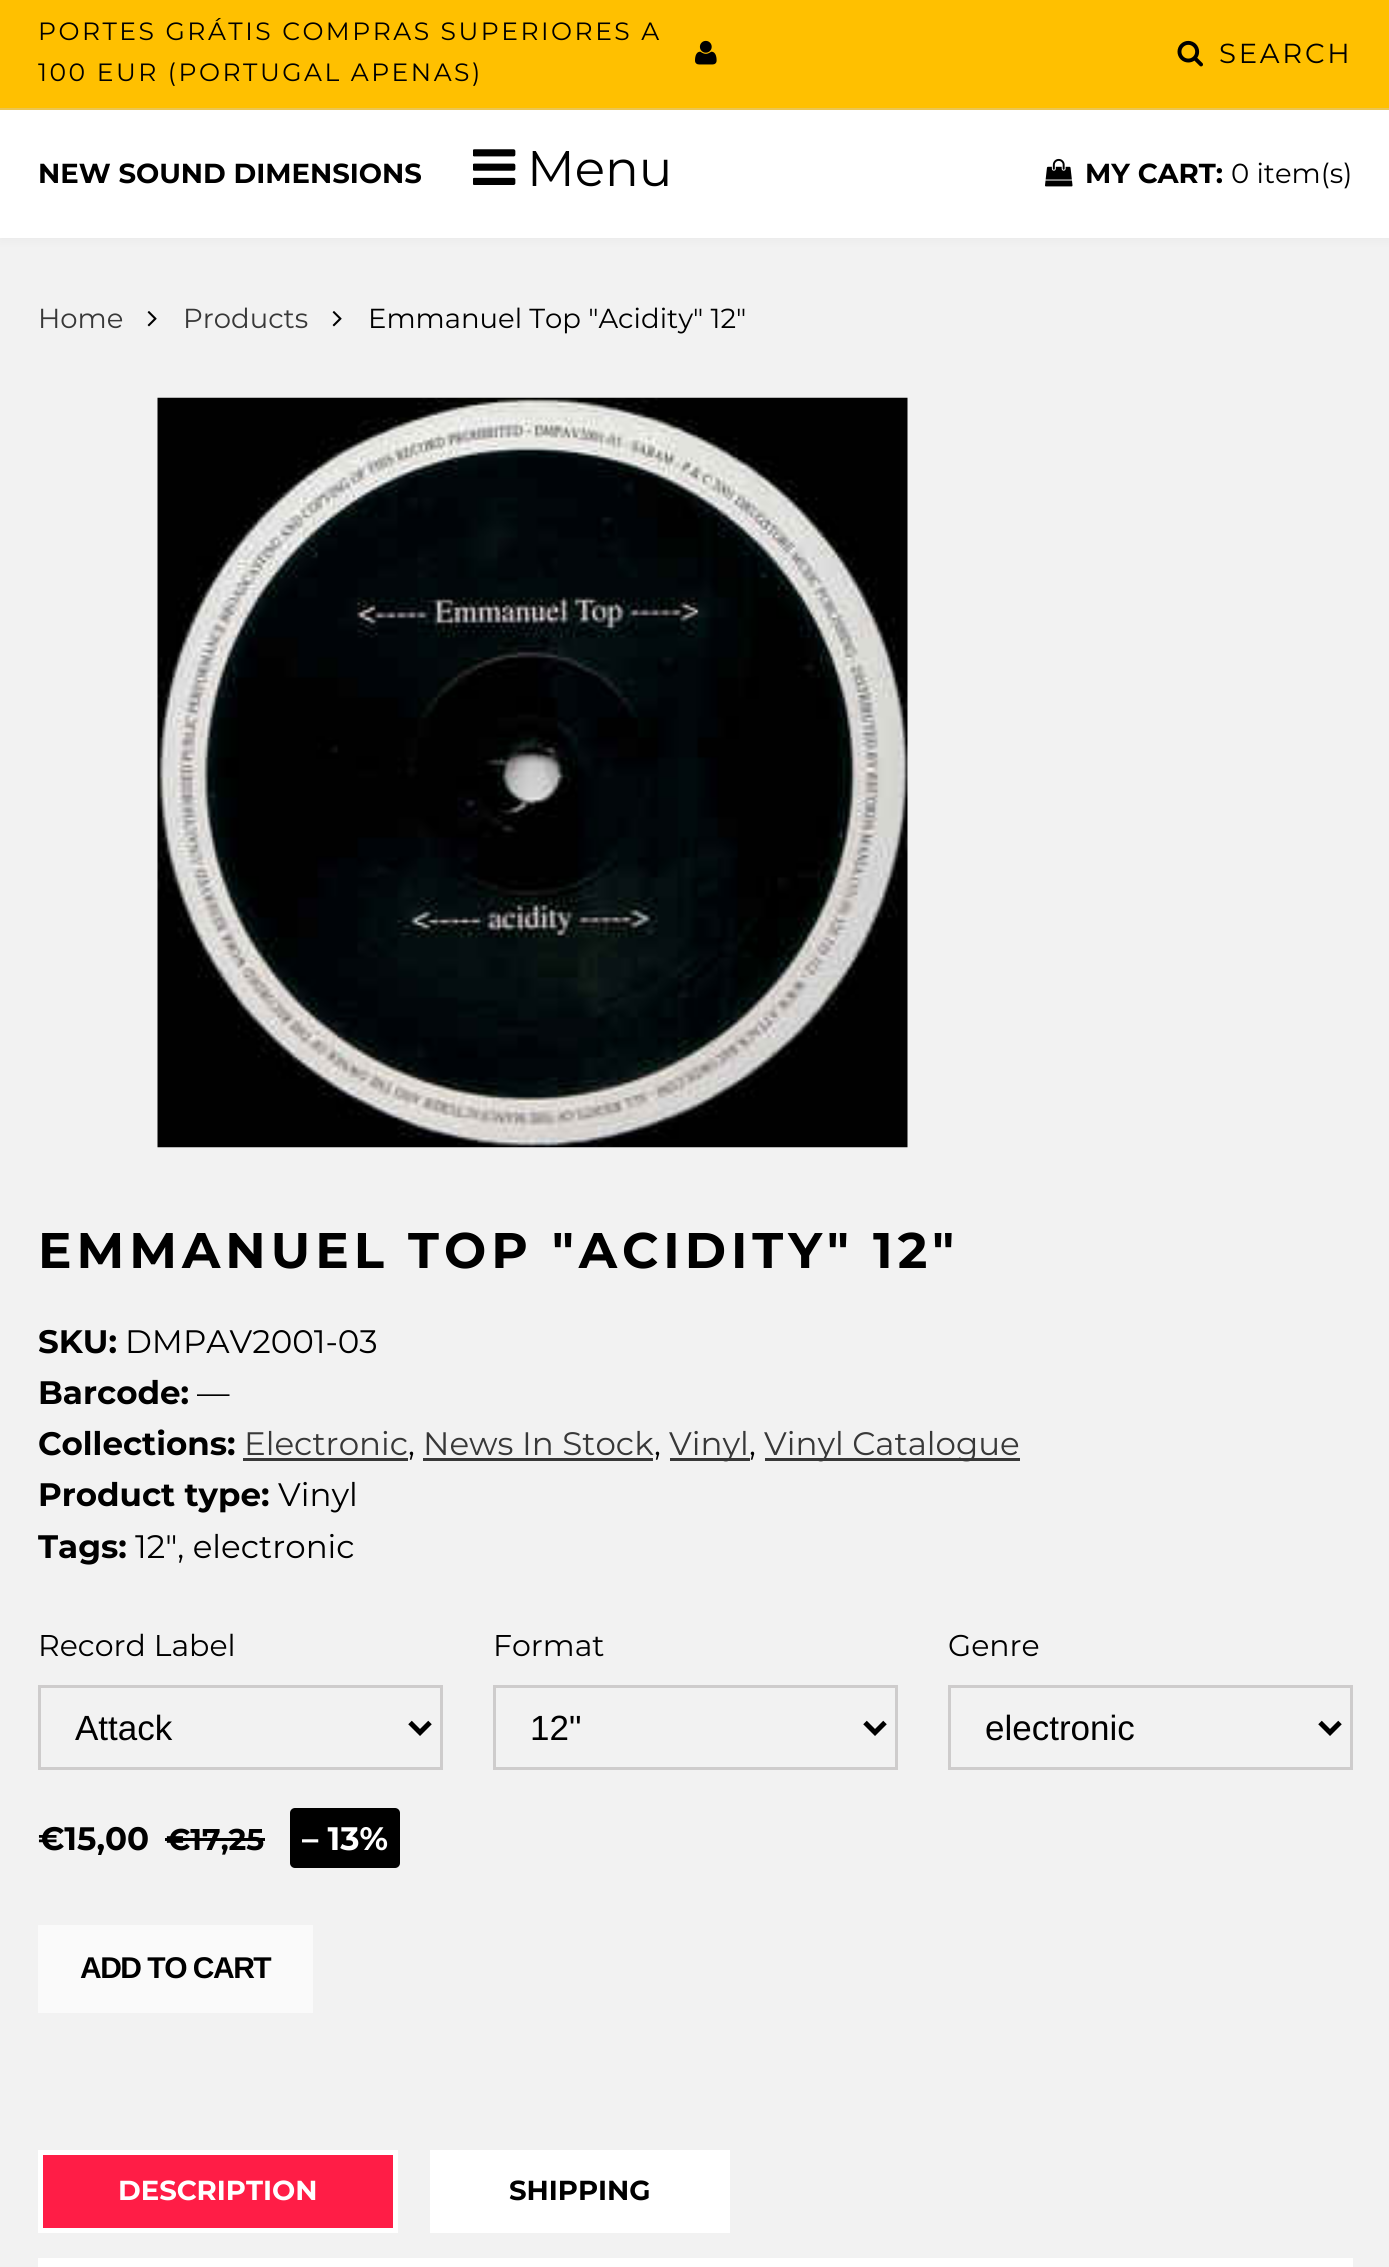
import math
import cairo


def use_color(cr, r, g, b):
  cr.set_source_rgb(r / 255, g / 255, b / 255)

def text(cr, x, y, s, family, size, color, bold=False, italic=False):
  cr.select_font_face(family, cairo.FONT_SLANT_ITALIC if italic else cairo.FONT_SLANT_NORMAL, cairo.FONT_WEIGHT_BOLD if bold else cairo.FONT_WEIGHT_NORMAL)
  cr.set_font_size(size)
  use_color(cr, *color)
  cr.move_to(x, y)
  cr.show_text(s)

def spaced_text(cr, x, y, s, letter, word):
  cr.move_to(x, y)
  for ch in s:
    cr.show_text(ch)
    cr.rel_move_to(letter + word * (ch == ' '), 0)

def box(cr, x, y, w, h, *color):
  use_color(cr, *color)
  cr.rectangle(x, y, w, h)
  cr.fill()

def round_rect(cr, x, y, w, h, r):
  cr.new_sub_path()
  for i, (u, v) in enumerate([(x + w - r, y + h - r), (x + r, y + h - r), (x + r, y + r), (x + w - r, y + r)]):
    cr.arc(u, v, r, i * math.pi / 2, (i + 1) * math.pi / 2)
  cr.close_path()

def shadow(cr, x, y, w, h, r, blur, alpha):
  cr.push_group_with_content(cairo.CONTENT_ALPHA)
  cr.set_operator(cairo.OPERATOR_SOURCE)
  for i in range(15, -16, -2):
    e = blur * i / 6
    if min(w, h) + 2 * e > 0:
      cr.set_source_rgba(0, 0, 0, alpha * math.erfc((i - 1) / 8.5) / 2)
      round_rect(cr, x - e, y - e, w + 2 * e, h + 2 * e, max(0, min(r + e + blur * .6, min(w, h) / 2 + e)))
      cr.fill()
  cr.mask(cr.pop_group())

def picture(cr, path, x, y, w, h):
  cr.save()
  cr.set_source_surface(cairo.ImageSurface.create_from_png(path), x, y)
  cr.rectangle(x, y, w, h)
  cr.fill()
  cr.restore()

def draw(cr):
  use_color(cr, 242, 242, 242)
  cr.paint()
  use_color(cr, 0, 0, 0)
  shadow(cr, 0, 0, 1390, 238, 0, 6, 0.05)
  box(cr, 0, 0, 1389, 108, 255, 192, 0)
  box(cr, 0, 108, 1389, 2, 235, 197, 82)
  picture(cr, "img_01.png", 695, 40, 22, 25)
  picture(cr, "img_02.png", 1177, 40, 26, 27)
  box(cr, 0, 110, 1389, 128, 255, 255, 255)
  picture(cr, "img_03.png", 473, 149, 43, 36)
  picture(cr, "img_04.png", 1045, 158, 28, 29)
  picture(cr, "img_05.png", 147, 311, 10, 16)
  picture(cr, "img_05.png", 332, 311, 10, 16)
  picture(cr, "img_06.png", 157, 397, 751, 751)
  box(cr, 243, 1458, 165, 3, 56, 56, 56)
  box(cr, 423, 1458, 230, 3, 56, 56, 56)
  box(cr, 670, 1458, 80, 3, 56, 56, 56)
  box(cr, 765, 1458, 255, 3, 56, 56, 56)
  cr.rectangle(39.5, 1686.5, 402, 82)
  use_color(cr, 206, 204, 204)
  cr.set_line_width(3)
  cr.stroke()
  cr.new_path()
  cr.move_to(410, 1722.5)
  cr.line_to(420, 1732.5)
  cr.line_to(430, 1722.5)
  use_color(cr, 0, 0, 0)
  cr.set_line_width(5)
  cr.stroke()
  cr.rectangle(494.5, 1686.5, 402, 82)
  use_color(cr, 206, 204, 204)
  cr.set_line_width(3)
  cr.stroke()
  cr.new_path()
  cr.move_to(865, 1722.5)
  cr.line_to(875, 1732.5)
  cr.line_to(885, 1722.5)
  use_color(cr, 0, 0, 0)
  cr.set_line_width(5)
  cr.stroke()
  cr.rectangle(949.5, 1686.5, 402, 82)
  use_color(cr, 206, 204, 204)
  cr.set_line_width(3)
  cr.stroke()
  cr.new_path()
  cr.move_to(1320, 1722.5)
  cr.line_to(1330, 1732.5)
  cr.line_to(1340, 1722.5)
  use_color(cr, 0, 0, 0)
  cr.set_line_width(5)
  cr.stroke()
  box(cr, 165, 1838, 100, 3, 0, 0, 0)
  round_rect(cr, 290, 1808, 110, 60, 5)
  cr.fill()
  box(cr, 38, 1925, 275, 88, 250, 250, 250)
  use_color(cr, 255, 29, 70)
  cr.rectangle(40.5, 2152.5, 355, 78)
  cr.fill_preserve()
  use_color(cr, 255, 255, 255)
  cr.stroke()
  box(cr, 430, 2150, 300, 83, 255, 255, 255)
  box(cr, 38, 2258, 1315, 9, 255, 255, 255)
  cr.select_font_face("Montserrat")
  cr.set_font_size(25)
  use_color(cr, 0, 0, 0)
  spaced_text(cr, 38, 40, "PORTES GRÁTIS COMPRAS SUPERIORES A", 2.5, 0)
  spaced_text(cr, 38, 81, "100 EUR (PORTUGAL APENAS)", 2.5, 0)
  cr.set_font_size(27.5)
  spaced_text(cr, 1219, 63, "SEARCH", 2.75, 0)
  text(cr, 38, 183, "NEW SOUND DIMENSIONS", "Montserrat", 27.5, (0, 0, 0), bold=True)
  text(cr, 527, 186, "Menu", "Montserrat", 50, (0, 0, 0))
  text(cr, 1085, 183, "MY CART:", "Montserrat", 27.5, (0, 0, 0), bold=True)
  text(cr, 1231, 183, "0 item(s)", "Montserrat", 27.5, (0, 0, 0))
  text(cr, 38, 328, "Home", "Montserrat", 27.5, (56, 56, 56))
  text(cr, 183, 328, "Products", "Montserrat", 27.5, (56, 56, 56))
  text(cr, 368, 328, "Emmanuel Top \"Acidity\" 12\"", "Montserrat", 27.5, (0, 0, 0))
  cr.select_font_face("Montserrat", cairo.FONT_SLANT_NORMAL, cairo.FONT_WEIGHT_BOLD)
  cr.set_font_size(50)
  spaced_text(cr, 38, 1268, "EMMANUEL TOP \"ACIDITY\" 12\"", 5, 0)
  text(cr, 38, 1353, "SKU:", "Montserrat", 32.5, (0, 0, 0), bold=True)
  text(cr, 125, 1353, "DMPAV2001-03", "Montserrat", 32.5, (0, 0, 0))
  text(cr, 38, 1404, "Barcode:", "Montserrat", 32.5, (0, 0, 0), bold=True)
  text(cr, 197, 1404, "—", "Montserrat", 32.5, (0, 0, 0))
  text(cr, 38, 1455, "Collections:", "Montserrat", 32.5, (0, 0, 0), bold=True)
  text(cr, 244, 1455, "Electronic", "Montserrat", 32.5, (56, 56, 56))
  text(cr, 408, 1455, ",", "Montserrat", 32.5, (0, 0, 0))
  text(cr, 423, 1455, "News In Stock", "Montserrat", 32.5, (56, 56, 56))
  text(cr, 654, 1455, ",", "Montserrat", 32.5, (0, 0, 0))
  text(cr, 669, 1455, "Vinyl", "Montserrat", 32.5, (56, 56, 56))
  text(cr, 749, 1455, ",", "Montserrat", 32.5, (0, 0, 0))
  text(cr, 764, 1455, "Vinyl Catalogue", "Montserrat", 32.5, (56, 56, 56))
  text(cr, 38, 1506, "Product type:", "Montserrat", 32.5, (0, 0, 0), bold=True)
  text(cr, 278, 1506, "Vinyl", "Montserrat", 32.5, (0, 0, 0))
  text(cr, 38, 1558, "Tags:", "Montserrat", 32.5, (0, 0, 0), bold=True)
  text(cr, 135, 1558, "12\", electronic", "Montserrat", 32.5, (0, 0, 0))
  text(cr, 38, 1656, "Record Label", "Montserrat", 30, (0, 0, 0))
  text(cr, 75, 1740, "Attack", "Liberation Sans", 35, (0, 0, 0))
  text(cr, 493, 1656, "Format", "Montserrat", 30, (0, 0, 0))
  text(cr, 530, 1740, "12\"", "Liberation Sans", 35, (0, 0, 0))
  text(cr, 948, 1656, "Genre", "Montserrat", 30, (0, 0, 0))
  text(cr, 985, 1740, "electronic", "Liberation Sans", 35, (0, 0, 0))
  text(cr, 38, 1850, "€15,00", "Montserrat", 32.5, (0, 0, 0), bold=True)
  text(cr, 166, 1850, "€17,25", "Montserrat", 30, (0, 0, 0), bold=True)
  text(cr, 302, 1850, "– 13%", "Montserrat", 32.5, (255, 255, 255), bold=True)
  cr.select_font_face("Liberation Sans", cairo.FONT_SLANT_NORMAL, cairo.FONT_WEIGHT_BOLD)
  cr.set_font_size(30)
  use_color(cr, 0, 0, 0)
  spaced_text(cr, 80, 1978, "ADD TO CART", -1.5, 0)
  text(cr, 118, 2200, "DESCRIPTION", "Montserrat", 27.5, (255, 255, 255), bold=True)
  text(cr, 509, 2200, "SHIPPING", "Montserrat", 27.5, (0, 0, 0), bold=True)


surface = cairo.ImageSurface(cairo.FORMAT_RGB24, 1389, 2267)
cr = cairo.Context(surface)
options = cairo.FontOptions()
options.set_hint_metrics(cairo.HINT_METRICS_OFF)
options.set_hint_style(cairo.HINT_STYLE_NONE)
cr.set_font_options(options)
cr.set_miter_limit(4)
draw(cr)
surface.write_to_png("out.png")
